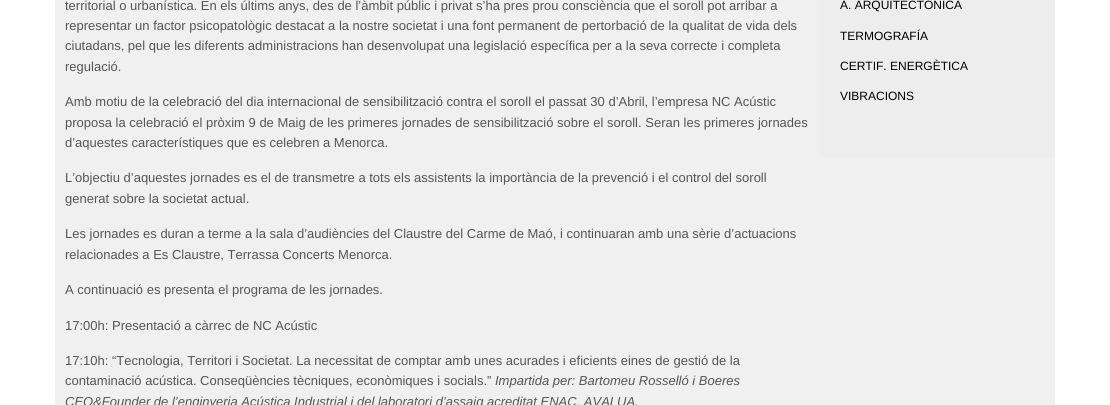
import math
import cairo


def use_color(cr, r, g, b):
  cr.set_source_rgb(r / 255, g / 255, b / 255)

def text(cr, x, y, s, family, size, color, bold=False, italic=False):
  cr.select_font_face(family, cairo.FONT_SLANT_ITALIC if italic else cairo.FONT_SLANT_NORMAL, cairo.FONT_WEIGHT_BOLD if bold else cairo.FONT_WEIGHT_NORMAL)
  cr.set_font_size(size)
  use_color(cr, *color)
  cr.move_to(x, y)
  cr.show_text(s)

def box(cr, x, y, w, h, *color):
  use_color(cr, *color)
  cr.rectangle(x, y, w, h)
  cr.fill()

def draw(cr):
  use_color(cr, 255, 255, 255)
  cr.paint()
  box(cr, 55, 0, 1000, 405, 240, 240, 240)
  box(cr, 820, 0, 235, 157, 237, 237, 237)
  text(cr, 65, 10, "territorial o urbanística. En els últims anys, des de l’àmbit públic i privat s’ha pres prou consciència que el soroll pot arribar a", "Liberation Sans", 13, (85, 85, 85))
  text(cr, 65, 30, "representar un factor psicopatològic destacat a la nostre societat i una font permanent de pertorbació de la qualitat de vida dels", "Liberation Sans", 13, (85, 85, 85))
  text(cr, 65, 50, "ciutadans, pel que les diferents administracions han desenvolupat una legislació específica per a la seva correcte i completa", "Liberation Sans", 13, (85, 85, 85))
  text(cr, 65, 71, "regulació.", "Liberation Sans", 13, (85, 85, 85))
  text(cr, 65, 106, "Amb motiu de la celebració del dia internacional de sensibilització contra el soroll el passat 30 d’Abril, l’empresa NC Acústic", "Liberation Sans", 13, (85, 85, 85))
  text(cr, 65, 127, "proposa la celebració el pròxim 9 de Maig de les primeres jornades de sensibilització sobre el soroll. Seran les primeres jornades", "Liberation Sans", 13, (85, 85, 85))
  text(cr, 65, 147, "d’aquestes característiques que es celebren a Menorca.", "Liberation Sans", 13, (85, 85, 85))
  text(cr, 65, 182, "L’objectiu d’aquestes jornades es el de transmetre a tots els assistents la importància de la prevenció i el control del soroll", "Liberation Sans", 13, (85, 85, 85))
  text(cr, 65, 203, "generat sobre la societat actual.", "Liberation Sans", 13, (85, 85, 85))
  text(cr, 65, 238, "Les jornades es duran a terme a la sala d’audiències del Claustre del Carme de Maó, i continuaran amb una sèrie d’actuacions", "Liberation Sans", 13, (85, 85, 85))
  text(cr, 65, 259, "relacionades a Es Claustre, Terrassa Concerts Menorca.", "Liberation Sans", 13, (85, 85, 85))
  text(cr, 65, 294, "A continuació es presenta el programa de les jornades.", "Liberation Sans", 13, (85, 85, 85))
  text(cr, 65, 330, "17:00h: Presentació a càrrec de NC Acústic", "Liberation Sans", 13, (85, 85, 85))
  text(cr, 65, 365, "17:10h: “Tecnologia, Territori i Societat. La necessitat de comptar amb unes acurades i eficients eines de gestió de la", "Liberation Sans", 13, (85, 85, 85))
  text(cr, 65, 385, "contaminació acústica. Conseqüències tècniques, econòmiques i socials.”", "Liberation Sans", 13, (85, 85, 85))
  text(cr, 495, 385, "Impartida per: Bartomeu Rosselló i Boeres", "Liberation Sans", 13, (85, 85, 85), italic=True)
  text(cr, 65, 406, "CEO&Founder de l’enginyeria Acústica Industrial i del laboratori d’assaig acreditat ENAC, AVALUA.", "Liberation Sans", 13, (85, 85, 85), italic=True)
  text(cr, 840, 9, "A. ARQUITECTÓNICA", "Liberation Sans", 12, (0, 0, 0))
  text(cr, 840, 40, "TERMOGRAFÍA", "Liberation Sans", 12, (0, 0, 0))
  text(cr, 840, 70, "CERTIF. ENERGÈTICA", "Liberation Sans", 12, (0, 0, 0))
  text(cr, 840, 100, "VIBRACIONS", "Liberation Sans", 12, (0, 0, 0))


surface = cairo.ImageSurface(cairo.FORMAT_RGB24, 1110, 405)
cr = cairo.Context(surface)
options = cairo.FontOptions()
options.set_hint_metrics(cairo.HINT_METRICS_OFF)
options.set_hint_style(cairo.HINT_STYLE_NONE)
cr.set_font_options(options)
cr.set_miter_limit(4)
draw(cr)
surface.write_to_png("out.png")
